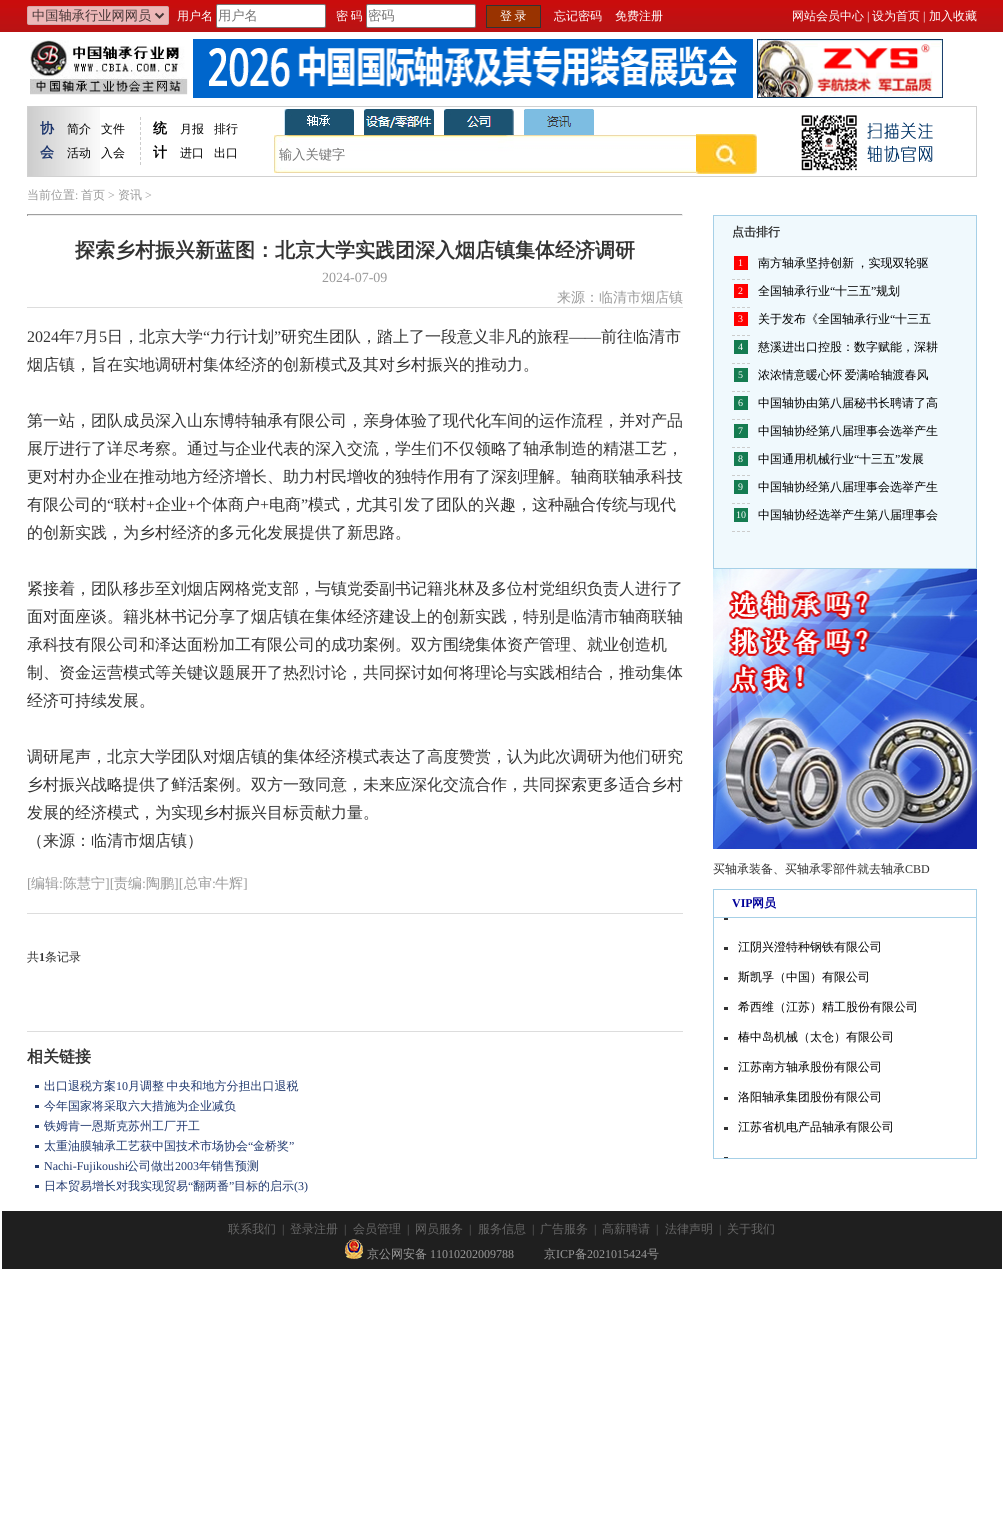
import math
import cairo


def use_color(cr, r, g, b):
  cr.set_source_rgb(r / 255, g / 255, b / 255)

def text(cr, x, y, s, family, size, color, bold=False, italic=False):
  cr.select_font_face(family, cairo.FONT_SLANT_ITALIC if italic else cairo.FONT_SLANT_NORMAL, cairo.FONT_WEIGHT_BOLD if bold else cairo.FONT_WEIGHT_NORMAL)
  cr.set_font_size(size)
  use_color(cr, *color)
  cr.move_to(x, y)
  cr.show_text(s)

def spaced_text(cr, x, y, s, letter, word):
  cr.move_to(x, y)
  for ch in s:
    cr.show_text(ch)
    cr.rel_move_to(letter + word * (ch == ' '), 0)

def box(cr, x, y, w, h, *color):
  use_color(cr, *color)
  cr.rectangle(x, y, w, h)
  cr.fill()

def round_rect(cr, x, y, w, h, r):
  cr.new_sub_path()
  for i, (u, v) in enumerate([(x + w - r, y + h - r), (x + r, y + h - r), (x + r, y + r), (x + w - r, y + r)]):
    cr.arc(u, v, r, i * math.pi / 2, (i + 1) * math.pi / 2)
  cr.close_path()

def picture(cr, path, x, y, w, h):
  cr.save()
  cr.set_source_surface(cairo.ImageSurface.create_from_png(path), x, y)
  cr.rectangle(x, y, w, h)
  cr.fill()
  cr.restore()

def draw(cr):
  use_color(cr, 255, 255, 255)
  cr.paint()
  picture(cr, "img_01.png", 0, 0, 1003, 32)
  cr.set_source_rgba(1, 1, 1, 0.7)
  round_rect(cr, 27, 6, 142, 19, 2)
  cr.fill()
  round_rect(cr, 27.5, 6.5, 141, 18, 1.5)
  cr.set_source_rgba(0.463, 0.463, 0.463, 0.21)
  cr.set_line_width(1)
  cr.stroke()
  cr.new_path()
  cr.move_to(155.5, 13.5)
  cr.line_to(159.5, 17.5)
  cr.line_to(163.5, 13.5)
  use_color(cr, 71, 55, 55)
  cr.set_line_width(2)
  cr.stroke()
  use_color(cr, 255, 255, 255)
  round_rect(cr, 216.5, 4.5, 109, 23, 1.5)
  cr.fill_preserve()
  use_color(cr, 118, 118, 118)
  cr.set_line_width(1)
  cr.stroke()
  use_color(cr, 255, 255, 255)
  round_rect(cr, 366.5, 4.5, 109, 23, 1.5)
  cr.fill_preserve()
  use_color(cr, 118, 118, 118)
  cr.stroke()
  use_color(cr, 153, 51, 0)
  cr.rectangle(486.5, 5.5, 54, 22)
  cr.fill_preserve()
  use_color(cr, 51, 51, 51)
  cr.stroke()
  picture(cr, "img_02.png", 30, 40, 158, 55)
  picture(cr, "img_03.png", 193, 39, 560, 59)
  picture(cr, "img_04.png", 757, 39, 186, 59)
  picture(cr, "img_05.png", 28, 107, 72, 69)
  cr.rectangle(27.5, 106.5, 949, 70)
  use_color(cr, 209, 209, 209)
  cr.stroke()
  cr.new_path()
  cr.move_to(140.5, 117)
  cr.line_to(140.5, 165)
  use_color(cr, 204, 204, 204)
  cr.set_dash([3, 2])
  cr.stroke()
  picture(cr, "img_06.png", 284, 109, 70, 26)
  picture(cr, "img_07.png", 364, 109, 70, 26)
  picture(cr, "img_08.png", 444, 109, 70, 26)
  picture(cr, "img_09.png", 524, 109, 70, 26)
  picture(cr, "img_10.png", 801, 115, 132, 56)
  picture(cr, "img_11.png", 274, 135, 422, 38)
  picture(cr, "img_12.png", 696, 134, 61, 40)
  box(cr, 27, 214, 656, 1, 159, 159, 159)
  box(cr, 682, 214, 1, 2, 238, 238, 238)
  box(cr, 27, 215, 656, 1, 238, 238, 238)
  box(cr, 27, 214, 1, 2, 159, 159, 159)
  box(cr, 27, 307, 656, 1, 221, 221, 221)
  box(cr, 27, 913, 656, 1, 221, 221, 221)
  box(cr, 27, 1031, 656, 1, 221, 221, 221)
  box(cr, 35, 1085, 4, 3, 33, 56, 110)
  box(cr, 35, 1105, 4, 3, 33, 56, 110)
  box(cr, 35, 1125, 4, 3, 33, 56, 110)
  box(cr, 35, 1145, 4, 3, 33, 56, 110)
  box(cr, 35, 1165, 4, 3, 33, 56, 110)
  box(cr, 35, 1185, 4, 3, 33, 56, 110)
  use_color(cr, 240, 249, 253)
  cr.rectangle(713.5, 215.5, 263, 353)
  cr.fill_preserve()
  use_color(cr, 166, 208, 231)
  cr.set_dash([])
  cr.stroke()
  cr.new_path()
  cr.move_to(732, 279.5)
  cr.line_to(750, 279.5)
  use_color(cr, 204, 204, 204)
  cr.set_dash([3, 2])
  cr.stroke()
  box(cr, 734, 256, 14, 14, 255, 0, 0)
  cr.new_path()
  cr.move_to(732, 307.5)
  cr.line_to(750, 307.5)
  use_color(cr, 204, 204, 204)
  cr.stroke()
  box(cr, 734, 284, 14, 14, 255, 0, 0)
  cr.new_path()
  cr.move_to(732, 335.5)
  cr.line_to(750, 335.5)
  use_color(cr, 204, 204, 204)
  cr.stroke()
  box(cr, 734, 312, 14, 14, 255, 0, 0)
  cr.new_path()
  cr.move_to(732, 363.5)
  cr.line_to(750, 363.5)
  use_color(cr, 204, 204, 204)
  cr.stroke()
  box(cr, 734, 340, 14, 14, 21, 124, 81)
  cr.new_path()
  cr.move_to(732, 391.5)
  cr.line_to(750, 391.5)
  use_color(cr, 204, 204, 204)
  cr.stroke()
  box(cr, 734, 368, 14, 14, 21, 124, 81)
  cr.new_path()
  cr.move_to(732, 419.5)
  cr.line_to(750, 419.5)
  use_color(cr, 204, 204, 204)
  cr.stroke()
  box(cr, 734, 396, 14, 14, 21, 124, 81)
  cr.new_path()
  cr.move_to(732, 447.5)
  cr.line_to(750, 447.5)
  use_color(cr, 204, 204, 204)
  cr.stroke()
  box(cr, 734, 424, 14, 14, 21, 124, 81)
  cr.new_path()
  cr.move_to(732, 475.5)
  cr.line_to(750, 475.5)
  use_color(cr, 204, 204, 204)
  cr.stroke()
  box(cr, 734, 452, 14, 14, 21, 124, 81)
  cr.new_path()
  cr.move_to(732, 503.5)
  cr.line_to(750, 503.5)
  use_color(cr, 204, 204, 204)
  cr.stroke()
  box(cr, 734, 480, 14, 14, 21, 124, 81)
  cr.new_path()
  cr.move_to(732, 531.5)
  cr.line_to(750, 531.5)
  use_color(cr, 204, 204, 204)
  cr.stroke()
  box(cr, 734, 508, 14, 14, 21, 124, 81)
  picture(cr, "img_13.png", 713, 569, 264, 280)
  cr.rectangle(713.5, 889.5, 263, 269)
  use_color(cr, 166, 208, 231)
  cr.set_dash([])
  cr.stroke()
  box(cr, 714, 917, 262, 1, 166, 208, 231)
  box(cr, 724, 918, 4, 2, 51, 51, 51)
  box(cr, 724, 947, 4, 3, 51, 51, 51)
  box(cr, 724, 977, 4, 3, 51, 51, 51)
  box(cr, 724, 1007, 4, 3, 51, 51, 51)
  box(cr, 724, 1037, 4, 3, 51, 51, 51)
  box(cr, 724, 1067, 4, 3, 51, 51, 51)
  box(cr, 724, 1097, 4, 3, 51, 51, 51)
  box(cr, 724, 1127, 4, 3, 51, 51, 51)
  box(cr, 724, 1157, 4, 1, 51, 51, 51)
  box(cr, 2, 1211, 1000, 58, 31, 31, 31)
  picture(cr, "img_14.png", 345, 1239, 18, 20)
  text(cr, 32, 20, "中国轴承行业网网员", "WenQuanYi Zen Hei Medium", 13.25, (71, 55, 55))
  text(cr, 177, 20, "用户名", "WenQuanYi Zen Hei Medium", 12, (255, 255, 255))
  text(cr, 218, 20, "用户名", "WenQuanYi Zen Hei Medium", 13.25, (117, 117, 117))
  cr.set_font_size(12)
  use_color(cr, 255, 255, 255)
  spaced_text(cr, 336, 20, "密 码", 0, -1)
  text(cr, 368, 20, "密码", "WenQuanYi Zen Hei Medium", 13.25, (117, 117, 117))
  cr.set_font_size(12)
  use_color(cr, 255, 255, 255)
  spaced_text(cr, 500, 20, "登 录", 0, -1)
  text(cr, 554, 20, "忘记密码", "WenQuanYi Zen Hei Medium", 12, (255, 255, 255))
  text(cr, 615, 20, "免费注册", "WenQuanYi Zen Hei Medium", 12, (255, 255, 255))
  text(cr, 792, 20, "网站会员中心", "WenQuanYi Zen Hei Medium", 12, (255, 255, 255))
  text(cr, 867, 20, "|", "Liberation Serif", 12, (255, 255, 255))
  text(cr, 872, 20, "设为首页", "WenQuanYi Zen Hei Medium", 12, (255, 255, 255))
  text(cr, 923, 20, "|", "Liberation Serif", 12, (255, 255, 255))
  text(cr, 929, 20, "加入收藏", "WenQuanYi Zen Hei Medium", 12, (255, 255, 255))
  text(cr, 40, 133, "协", "WenQuanYi Zen Hei", 14, (31, 55, 109), bold=True)
  text(cr, 40, 157, "会", "WenQuanYi Zen Hei", 14, (31, 55, 109), bold=True)
  text(cr, 67, 133, "简介", "WenQuanYi Zen Hei Medium", 12, (0, 0, 0))
  text(cr, 101, 133, "文件", "WenQuanYi Zen Hei Medium", 12, (0, 0, 0))
  text(cr, 67, 157, "活动", "WenQuanYi Zen Hei Medium", 12, (0, 0, 0))
  text(cr, 101, 157, "入会", "WenQuanYi Zen Hei Medium", 12, (0, 0, 0))
  text(cr, 153, 133, "统", "WenQuanYi Zen Hei", 14, (0, 0, 0), bold=True)
  text(cr, 153, 157, "计", "WenQuanYi Zen Hei", 14, (0, 0, 0), bold=True)
  text(cr, 180, 133, "月报", "WenQuanYi Zen Hei Medium", 12, (0, 0, 0))
  text(cr, 214, 133, "排行", "WenQuanYi Zen Hei Medium", 12, (0, 0, 0))
  text(cr, 180, 157, "进口", "WenQuanYi Zen Hei Medium", 12, (0, 0, 0))
  text(cr, 214, 157, "出口", "WenQuanYi Zen Hei Medium", 12, (0, 0, 0))
  text(cr, 279, 159, "输入关键字", "WenQuanYi Zen Hei Medium", 13.25, (117, 117, 117))
  text(cr, 27, 199, "当前位置", "WenQuanYi Zen Hei Medium", 12, (153, 153, 153))
  text(cr, 75, 199, ":", "Liberation Serif", 12, (153, 153, 153))
  text(cr, 81, 199, "首页", "WenQuanYi Zen Hei Medium", 12, (153, 153, 153))
  text(cr, 108, 199, ">", "Liberation Serif", 12, (153, 153, 153))
  text(cr, 118, 199, "资讯", "WenQuanYi Zen Hei Medium", 12, (153, 153, 153))
  text(cr, 145, 199, ">", "Liberation Serif", 12, (153, 153, 153))
  text(cr, 75, 257, "探索乡村振兴新蓝图：北京大学实践团深入烟店镇集体经济调研", "WenQuanYi Zen Hei", 20, (51, 51, 51), bold=True)
  text(cr, 322, 282, "2024-07-09", "Liberation Serif", 14, (153, 153, 153))
  text(cr, 557, 302, "来源：临清市烟店镇", "WenQuanYi Zen Hei Medium", 14, (153, 153, 153))
  text(cr, 27, 342, "2024", "Liberation Serif", 16, (51, 51, 51))
  text(cr, 59, 342, "年", "WenQuanYi Zen Hei Medium", 16, (51, 51, 51))
  text(cr, 75, 342, "7", "Liberation Serif", 16, (51, 51, 51))
  text(cr, 83, 342, "月", "WenQuanYi Zen Hei Medium", 16, (51, 51, 51))
  text(cr, 99, 342, "5", "Liberation Serif", 16, (51, 51, 51))
  text(cr, 107, 342, "日，北京大学", "WenQuanYi Zen Hei Medium", 16, (51, 51, 51))
  text(cr, 203, 342, "“", "Liberation Serif", 16, (51, 51, 51))
  text(cr, 210, 342, "力行计划", "WenQuanYi Zen Hei Medium", 16, (51, 51, 51))
  text(cr, 274, 342, "”", "Liberation Serif", 16, (51, 51, 51))
  text(cr, 281, 342, "研究生团队，踏上了一段意义非凡的旅程", "WenQuanYi Zen Hei Medium", 16, (51, 51, 51))
  text(cr, 601, 342, "前往临清市", "WenQuanYi Zen Hei Medium", 16, (51, 51, 51))
  text(cr, 569, 342, "——", "Liberation Serif", 16, (51, 51, 51))
  text(cr, 27, 370, "烟店镇，旨在实地调研村集体经济的创新模式及其对乡村振兴的推动力。", "WenQuanYi Zen Hei Medium", 16, (51, 51, 51))
  text(cr, 27, 426, "第一站，团队成员深入山东博特轴承有限公司，亲身体验了现代化车间的运作流程，并对产品", "WenQuanYi Zen Hei Medium", 16, (51, 51, 51))
  text(cr, 27, 454, "展厅进行了详尽考察。通过与企业代表的深入交流，学生们不仅领略了轴承制造的精湛工艺，", "WenQuanYi Zen Hei Medium", 16, (51, 51, 51))
  text(cr, 27, 482, "更对村办企业在推动地方经济增长、助力村民增收的独特作用有了深刻理解。轴商联轴承科技", "WenQuanYi Zen Hei Medium", 16, (51, 51, 51))
  text(cr, 27, 510, "有限公司的", "WenQuanYi Zen Hei Medium", 16, (51, 51, 51))
  text(cr, 107, 510, "“", "Liberation Serif", 16, (51, 51, 51))
  text(cr, 114, 510, "联村", "WenQuanYi Zen Hei Medium", 16, (51, 51, 51))
  text(cr, 146, 510, "+", "Liberation Serif", 16, (51, 51, 51))
  text(cr, 155, 510, "企业", "WenQuanYi Zen Hei Medium", 16, (51, 51, 51))
  text(cr, 187, 510, "+", "Liberation Serif", 16, (51, 51, 51))
  text(cr, 196, 510, "个体商户", "WenQuanYi Zen Hei Medium", 16, (51, 51, 51))
  text(cr, 260, 510, "+", "Liberation Serif", 16, (51, 51, 51))
  text(cr, 269, 510, "电商", "WenQuanYi Zen Hei Medium", 16, (51, 51, 51))
  text(cr, 301, 510, "”", "Liberation Serif", 16, (51, 51, 51))
  text(cr, 308, 510, "模式，尤其引发了团队的兴趣，这种融合传统与现代", "WenQuanYi Zen Hei Medium", 16, (51, 51, 51))
  text(cr, 27, 538, "的创新实践，为乡村经济的多元化发展提供了新思路。", "WenQuanYi Zen Hei Medium", 16, (51, 51, 51))
  text(cr, 27, 594, "紧接着，团队移步至刘烟店网格党支部，与镇党委副书记籍兆林及多位村党组织负责人进行了", "WenQuanYi Zen Hei Medium", 16, (51, 51, 51))
  text(cr, 27, 622, "面对面座谈。籍兆林书记分享了烟店镇在集体经济建设上的创新实践，特别是临清市轴商联轴", "WenQuanYi Zen Hei Medium", 16, (51, 51, 51))
  text(cr, 27, 650, "承科技有限公司和泽达面粉加工有限公司的成功案例。双方围绕集体资产管理、就业创造机", "WenQuanYi Zen Hei Medium", 16, (51, 51, 51))
  text(cr, 27, 678, "制、资金运营模式等关键议题展开了热烈讨论，共同探讨如何将理论与实践相结合，推动集体", "WenQuanYi Zen Hei Medium", 16, (51, 51, 51))
  text(cr, 27, 706, "经济可持续发展。", "WenQuanYi Zen Hei Medium", 16, (51, 51, 51))
  text(cr, 27, 762, "调研尾声，北京大学团队对烟店镇的集体经济模式表达了高度赞赏，认为此次调研为他们研究", "WenQuanYi Zen Hei Medium", 16, (51, 51, 51))
  text(cr, 27, 790, "乡村振兴战略提供了鲜活案例。双方一致同意，未来应深化交流合作，共同探索更多适合乡村", "WenQuanYi Zen Hei Medium", 16, (51, 51, 51))
  text(cr, 27, 818, "发展的经济模式，为实现乡村振兴目标贡献力量。", "WenQuanYi Zen Hei Medium", 16, (51, 51, 51))
  text(cr, 27, 846, "（来源：临清市烟店镇）", "WenQuanYi Zen Hei Medium", 16, (51, 51, 51))
  text(cr, 27, 888, "[", "Liberation Serif", 14, (153, 153, 153))
  text(cr, 31, 888, "编辑", "WenQuanYi Zen Hei Medium", 14, (153, 153, 153))
  text(cr, 59, 888, ":", "Liberation Serif", 14, (153, 153, 153))
  text(cr, 63, 888, "陈慧宁", "WenQuanYi Zen Hei Medium", 14, (153, 153, 153))
  text(cr, 105, 888, "][", "Liberation Serif", 14, (153, 153, 153))
  text(cr, 114, 888, "责编", "WenQuanYi Zen Hei Medium", 14, (153, 153, 153))
  text(cr, 142, 888, ":", "Liberation Serif", 14, (153, 153, 153))
  text(cr, 146, 888, "陶鹏", "WenQuanYi Zen Hei Medium", 14, (153, 153, 153))
  text(cr, 174, 888, "][", "Liberation Serif", 14, (153, 153, 153))
  text(cr, 184, 888, "总审", "WenQuanYi Zen Hei Medium", 14, (153, 153, 153))
  text(cr, 212, 888, ":", "Liberation Serif", 14, (153, 153, 153))
  text(cr, 215, 888, "牛辉", "WenQuanYi Zen Hei Medium", 14, (153, 153, 153))
  text(cr, 243, 888, "]", "Liberation Serif", 14, (153, 153, 153))
  text(cr, 27, 961, "共", "WenQuanYi Zen Hei Medium", 12, (51, 51, 51))
  text(cr, 39, 961, "1", "Liberation Serif", 12, (51, 51, 51), bold=True)
  text(cr, 45, 961, "条记录", "WenQuanYi Zen Hei Medium", 12, (51, 51, 51))
  text(cr, 27, 1062, "相关链接", "WenQuanYi Zen Hei", 16, (51, 51, 51), bold=True)
  text(cr, 44, 1090, "出口退税方案", "WenQuanYi Zen Hei Medium", 12, (31, 55, 109))
  text(cr, 116, 1090, "10", "Liberation Serif", 12, (31, 55, 109))
  cr.select_font_face("WenQuanYi Zen Hei Medium")
  spaced_text(cr, 128, 1090, "月调整 中央和地方分担出口退税", 0, -1)
  text(cr, 44, 1110, "今年国家将采取六大措施为企业减负", "WenQuanYi Zen Hei Medium", 12, (31, 55, 109))
  text(cr, 44, 1130, "铁姆肯一恩斯克苏州工厂开工", "WenQuanYi Zen Hei Medium", 12, (31, 55, 109))
  text(cr, 44, 1150, "太重油膜轴承工艺获中国技术市场协会", "WenQuanYi Zen Hei Medium", 12, (31, 55, 109))
  text(cr, 248, 1150, "“", "Liberation Serif", 12, (31, 55, 109))
  text(cr, 253, 1150, "金桥奖", "WenQuanYi Zen Hei Medium", 12, (31, 55, 109))
  text(cr, 289, 1150, "”", "Liberation Serif", 12, (31, 55, 109))
  text(cr, 44, 1170, "Nachi-Fujikoushi", "Liberation Serif", 12, (31, 55, 109))
  text(cr, 127, 1170, "公司做出", "WenQuanYi Zen Hei Medium", 12, (31, 55, 109))
  text(cr, 175, 1170, "2003", "Liberation Serif", 12, (31, 55, 109))
  text(cr, 199, 1170, "年销售预测", "WenQuanYi Zen Hei Medium", 12, (31, 55, 109))
  text(cr, 44, 1190, "日本贸易增长对我实现贸易", "WenQuanYi Zen Hei Medium", 12, (31, 55, 109))
  text(cr, 188, 1190, "“", "Liberation Serif", 12, (31, 55, 109))
  text(cr, 193, 1190, "翻两番", "WenQuanYi Zen Hei Medium", 12, (31, 55, 109))
  text(cr, 229, 1190, "”", "Liberation Serif", 12, (31, 55, 109))
  text(cr, 234, 1190, "目标的启示", "WenQuanYi Zen Hei Medium", 12, (31, 55, 109))
  text(cr, 294, 1190, "(3)", "Liberation Serif", 12, (31, 55, 109))
  text(cr, 732, 236, "点击排行", "WenQuanYi Zen Hei", 12, (51, 51, 51), bold=True)
  text(cr, 738, 266, "1", "Liberation Serif", 10, (255, 255, 255))
  cr.select_font_face("WenQuanYi Zen Hei Medium")
  cr.set_font_size(12)
  use_color(cr, 0, 0, 0)
  spaced_text(cr, 758, 267, "南方轴承坚持创新 ，实现双轮驱", 0, -1)
  text(cr, 738, 294, "2", "Liberation Serif", 10, (255, 255, 255))
  text(cr, 758, 295, "全国轴承行业", "WenQuanYi Zen Hei Medium", 12, (0, 0, 0))
  text(cr, 830, 295, "“", "Liberation Serif", 12, (0, 0, 0))
  text(cr, 835, 295, "十三五", "WenQuanYi Zen Hei Medium", 12, (0, 0, 0))
  text(cr, 871, 295, "”", "Liberation Serif", 12, (0, 0, 0))
  text(cr, 876, 295, "规划", "WenQuanYi Zen Hei Medium", 12, (0, 0, 0))
  text(cr, 738, 322, "3", "Liberation Serif", 10, (255, 255, 255))
  text(cr, 758, 323, "关于发布《全国轴承行业", "WenQuanYi Zen Hei Medium", 12, (0, 0, 0))
  text(cr, 890, 323, "“", "Liberation Serif", 12, (0, 0, 0))
  text(cr, 895, 323, "十三五", "WenQuanYi Zen Hei Medium", 12, (0, 0, 0))
  text(cr, 738, 350, "4", "Liberation Serif", 10, (255, 255, 255))
  text(cr, 758, 351, "慈溪进出口控股：数字赋能，深耕", "WenQuanYi Zen Hei Medium", 12, (0, 0, 0))
  text(cr, 738, 378, "5", "Liberation Serif", 10, (255, 255, 255))
  cr.select_font_face("WenQuanYi Zen Hei Medium")
  cr.set_font_size(12)
  use_color(cr, 0, 0, 0)
  spaced_text(cr, 758, 379, "浓浓情意暖心怀 爱满哈轴渡春风", 0, -1)
  text(cr, 738, 406, "6", "Liberation Serif", 10, (255, 255, 255))
  text(cr, 758, 407, "中国轴协由第八届秘书长聘请了高", "WenQuanYi Zen Hei Medium", 12, (0, 0, 0))
  text(cr, 738, 434, "7", "Liberation Serif", 10, (255, 255, 255))
  text(cr, 758, 435, "中国轴协经第八届理事会选举产生", "WenQuanYi Zen Hei Medium", 12, (0, 0, 0))
  text(cr, 738, 462, "8", "Liberation Serif", 10, (255, 255, 255))
  text(cr, 758, 463, "中国通用机械行业", "WenQuanYi Zen Hei Medium", 12, (0, 0, 0))
  text(cr, 854, 463, "“", "Liberation Serif", 12, (0, 0, 0))
  text(cr, 859, 463, "十三五", "WenQuanYi Zen Hei Medium", 12, (0, 0, 0))
  text(cr, 895, 463, "”", "Liberation Serif", 12, (0, 0, 0))
  text(cr, 900, 463, "发展", "WenQuanYi Zen Hei Medium", 12, (0, 0, 0))
  text(cr, 738, 490, "9", "Liberation Serif", 10, (255, 255, 255))
  text(cr, 758, 491, "中国轴协经第八届理事会选举产生", "WenQuanYi Zen Hei Medium", 12, (0, 0, 0))
  text(cr, 736, 518, "10", "Liberation Serif", 10, (255, 255, 255))
  text(cr, 758, 519, "中国轴协经选举产生第八届理事会", "WenQuanYi Zen Hei Medium", 12, (0, 0, 0))
  text(cr, 713, 873, "买轴承装备、买轴承零部件就去轴承", "WenQuanYi Zen Hei Medium", 12, (51, 51, 51))
  text(cr, 905, 873, "CBD", "Liberation Serif", 12, (51, 51, 51))
  text(cr, 732, 907, "VIP", "Liberation Serif", 12, (0, 0, 153), bold=True)
  text(cr, 752, 907, "网员", "WenQuanYi Zen Hei", 12, (0, 0, 153), bold=True)
  text(cr, 738, 951, "江阴兴澄特种钢铁有限公司", "WenQuanYi Zen Hei Medium", 12, (0, 0, 0))
  text(cr, 738, 981, "斯凯孚（中国）有限公司", "WenQuanYi Zen Hei Medium", 12, (0, 0, 0))
  text(cr, 738, 1011, "希西维（江苏）精工股份有限公司", "WenQuanYi Zen Hei Medium", 12, (0, 0, 0))
  text(cr, 738, 1041, "椿中岛机械（太仓）有限公司", "WenQuanYi Zen Hei Medium", 12, (0, 0, 0))
  text(cr, 738, 1071, "江苏南方轴承股份有限公司", "WenQuanYi Zen Hei Medium", 12, (0, 0, 0))
  text(cr, 738, 1101, "洛阳轴承集团股份有限公司", "WenQuanYi Zen Hei Medium", 12, (0, 0, 0))
  text(cr, 738, 1131, "江苏省机电产品轴承有限公司", "WenQuanYi Zen Hei Medium", 12, (0, 0, 0))
  text(cr, 228, 1233, "联系我们", "WenQuanYi Zen Hei Medium", 12, (102, 102, 102))
  text(cr, 282, 1233, "|", "Liberation Serif", 12, (102, 102, 102))
  text(cr, 290, 1233, "登录注册", "WenQuanYi Zen Hei Medium", 12, (102, 102, 102))
  text(cr, 344, 1233, "|", "Liberation Serif", 12, (102, 102, 102))
  text(cr, 353, 1233, "会员管理", "WenQuanYi Zen Hei Medium", 12, (102, 102, 102))
  text(cr, 407, 1233, "|", "Liberation Serif", 12, (102, 102, 102))
  text(cr, 415, 1233, "网员服务", "WenQuanYi Zen Hei Medium", 12, (102, 102, 102))
  text(cr, 469, 1233, "|", "Liberation Serif", 12, (102, 102, 102))
  text(cr, 478, 1233, "服务信息", "WenQuanYi Zen Hei Medium", 12, (102, 102, 102))
  text(cr, 532, 1233, "|", "Liberation Serif", 12, (102, 102, 102))
  text(cr, 540, 1233, "广告服务", "WenQuanYi Zen Hei Medium", 12, (102, 102, 102))
  text(cr, 594, 1233, "|", "Liberation Serif", 12, (102, 102, 102))
  text(cr, 602, 1233, "高薪聘请", "WenQuanYi Zen Hei Medium", 12, (102, 102, 102))
  text(cr, 656, 1233, "|", "Liberation Serif", 12, (102, 102, 102))
  text(cr, 665, 1233, "法律声明", "WenQuanYi Zen Hei Medium", 12, (102, 102, 102))
  text(cr, 719, 1233, "|", "Liberation Serif", 12, (102, 102, 102))
  text(cr, 727, 1233, "关于我们", "WenQuanYi Zen Hei Medium", 12, (102, 102, 102))
  text(cr, 367, 1258, "京公网安备", "WenQuanYi Zen Hei Medium", 12, (153, 153, 153))
  text(cr, 430, 1258, "11010202009788", "Liberation Serif", 12, (153, 153, 153))
  text(cr, 544, 1258, "京", "WenQuanYi Zen Hei Medium", 12, (153, 153, 153))
  text(cr, 556, 1258, "ICP", "Liberation Serif", 12, (153, 153, 153))
  text(cr, 575, 1258, "备", "WenQuanYi Zen Hei Medium", 12, (153, 153, 153))
  text(cr, 587, 1258, "2021015424", "Liberation Serif", 12, (153, 153, 153))
  text(cr, 647, 1258, "号", "WenQuanYi Zen Hei Medium", 12, (153, 153, 153))


surface = cairo.ImageSurface(cairo.FORMAT_RGB24, 1003, 1520)
cr = cairo.Context(surface)
options = cairo.FontOptions()
options.set_hint_metrics(cairo.HINT_METRICS_OFF)
options.set_hint_style(cairo.HINT_STYLE_NONE)
cr.set_font_options(options)
cr.set_miter_limit(4)
draw(cr)
surface.write_to_png("out.png")
